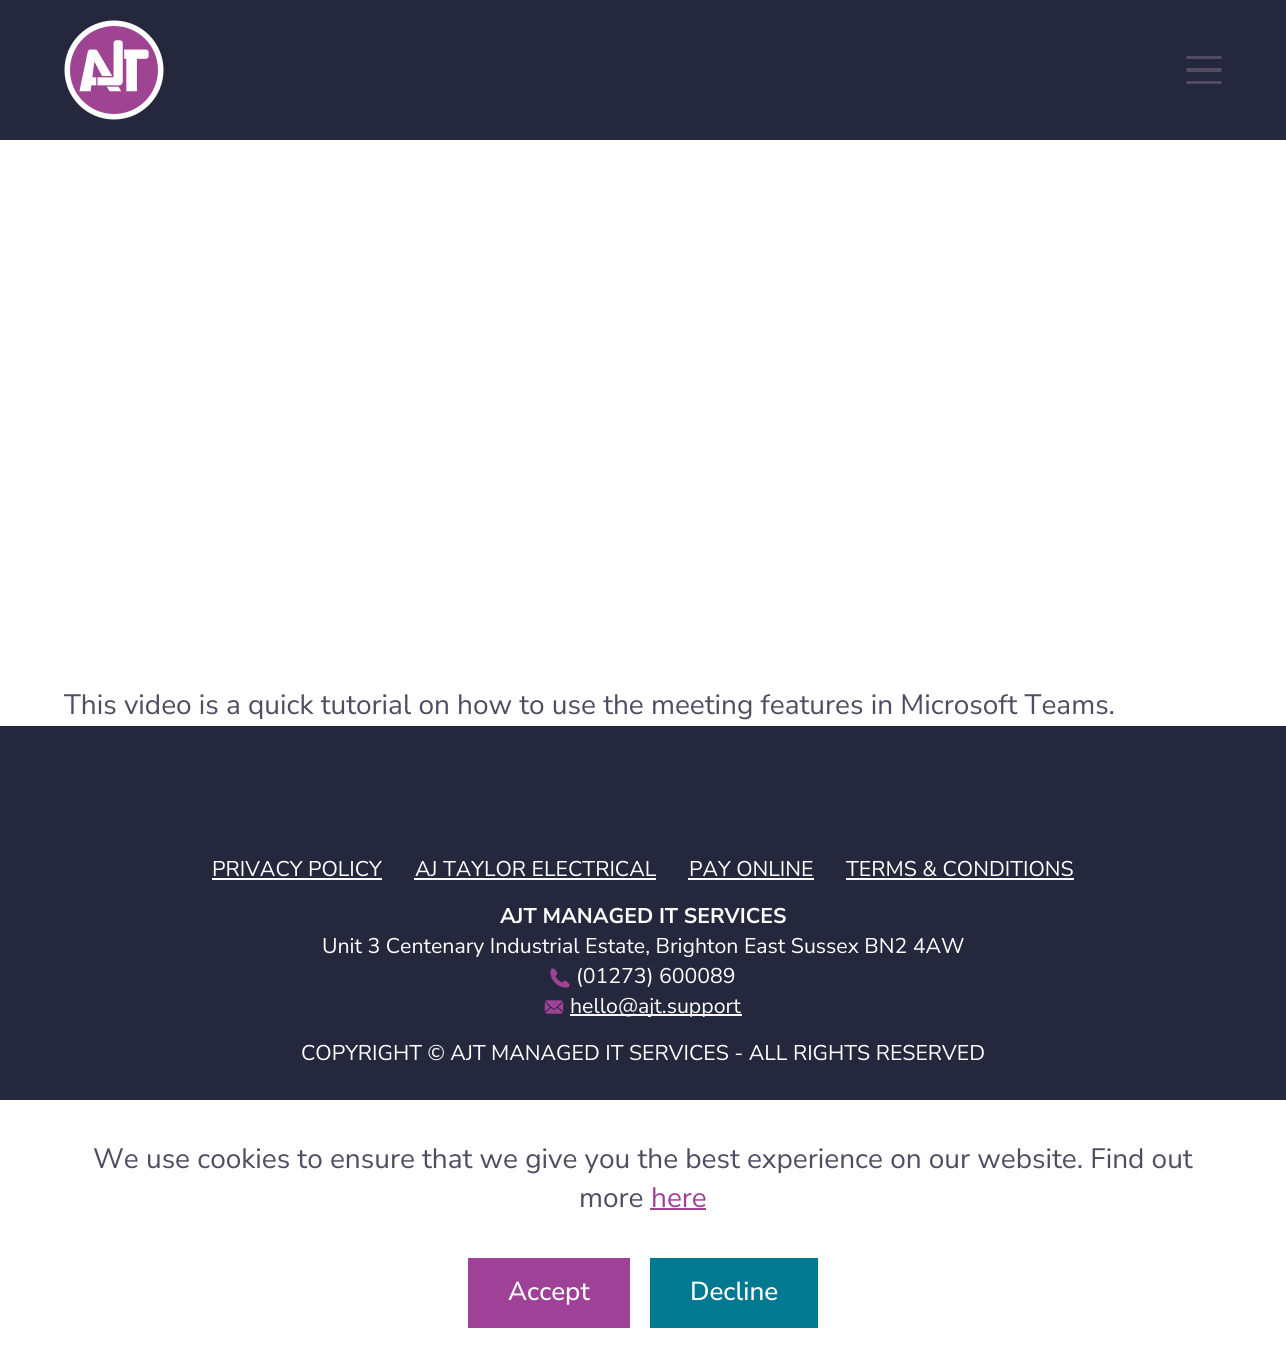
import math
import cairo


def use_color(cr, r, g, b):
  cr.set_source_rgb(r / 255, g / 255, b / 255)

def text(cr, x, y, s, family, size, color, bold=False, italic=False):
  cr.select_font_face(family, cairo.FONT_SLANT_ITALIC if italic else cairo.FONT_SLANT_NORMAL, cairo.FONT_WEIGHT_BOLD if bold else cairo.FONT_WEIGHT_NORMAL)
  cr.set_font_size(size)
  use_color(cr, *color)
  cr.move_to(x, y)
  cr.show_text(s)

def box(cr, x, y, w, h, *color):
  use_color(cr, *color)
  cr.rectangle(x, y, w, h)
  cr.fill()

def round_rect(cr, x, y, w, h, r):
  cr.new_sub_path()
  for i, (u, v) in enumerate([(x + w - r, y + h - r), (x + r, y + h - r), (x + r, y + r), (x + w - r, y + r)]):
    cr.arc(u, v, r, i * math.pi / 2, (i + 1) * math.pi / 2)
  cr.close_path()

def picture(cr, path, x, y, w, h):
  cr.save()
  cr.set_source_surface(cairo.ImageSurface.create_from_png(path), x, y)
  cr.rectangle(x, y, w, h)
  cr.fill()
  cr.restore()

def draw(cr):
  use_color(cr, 255, 255, 255)
  cr.paint()
  box(cr, 0, 0, 1286, 140, 37, 40, 61)
  picture(cr, "img_01.png", 64, 20, 100, 100)
  use_color(cr, 83, 75, 98)
  round_rect(cr, 1186, 56, 36, 3, 1.5)
  cr.fill()
  round_rect(cr, 1186, 68, 36, 4, 2)
  cr.fill()
  round_rect(cr, 1186, 81, 36, 3, 1.5)
  cr.fill()
  box(cr, 0, 726, 1286, 374, 37, 40, 61)
  box(cr, 212, 878, 170, 2, 255, 255, 255)
  box(cr, 414, 878, 242, 2, 255, 255, 255)
  box(cr, 688, 878, 126, 2, 255, 255, 255)
  box(cr, 846, 878, 228, 2, 255, 255, 255)
  picture(cr, "img_02.png", 550, 968, 20, 20)
  picture(cr, "img_03.png", 544, 1000, 20, 14)
  box(cr, 570, 1014, 172, 2, 255, 255, 255)
  box(cr, 650, 1208, 56, 2, 160, 65, 152)
  box(cr, 468, 1258, 162, 70, 160, 65, 152)
  box(cr, 650, 1258, 168, 70, 0, 121, 145)
  text(cr, 64, 714, "This video is a quick tutorial on how to use the meeting features in Microsoft Teams.", "Nunito Sans", 28, (83, 75, 98))
  text(cr, 212, 876, "PRIVACY POLICY", "Nunito Sans", 21.3, (255, 255, 255))
  text(cr, 415, 876, "AJ TAYLOR ELECTRICAL", "Nunito Sans", 21.3, (255, 255, 255))
  text(cr, 689, 876, "PAY ONLINE", "Nunito Sans", 21.3, (255, 255, 255))
  text(cr, 846, 876, "TERMS & CONDITIONS", "Nunito Sans", 21.3, (255, 255, 255))
  text(cr, 500, 923, "AJT MANAGED IT SERVICES", "Nunito Sans", 21.3, (255, 255, 255), bold=True)
  text(cr, 322, 953, "Unit 3 Centenary Industrial Estate, Brighton East Sussex BN2 4AW", "Nunito Sans", 21.3, (255, 255, 255))
  text(cr, 576, 983, "(01273) 600089", "Nunito Sans", 21.3, (255, 255, 255))
  text(cr, 570, 1013, "hello@ajt.support", "Nunito Sans", 21.3, (255, 255, 255))
  text(cr, 301, 1060, "COPYRIGHT © AJT MANAGED IT SERVICES - ALL RIGHTS RESERVED", "Nunito Sans", 21.3, (255, 255, 255))
  text(cr, 93, 1168, "We use cookies to ensure that we give you the best experience on our website. Find out", "Nunito Sans", 28, (83, 75, 98))
  text(cr, 579, 1207, "more", "Nunito Sans", 28, (83, 75, 98))
  text(cr, 651, 1207, "here", "Nunito Sans", 28, (160, 65, 152))
  text(cr, 508, 1300, "Accept", "Nunito Sans Medium", 26, (255, 255, 255))
  text(cr, 690, 1300, "Decline", "Nunito Sans Medium", 26, (255, 255, 255))


surface = cairo.ImageSurface(cairo.FORMAT_RGB24, 1286, 1367)
cr = cairo.Context(surface)
options = cairo.FontOptions()
options.set_hint_metrics(cairo.HINT_METRICS_OFF)
options.set_hint_style(cairo.HINT_STYLE_NONE)
cr.set_font_options(options)
cr.set_miter_limit(4)
draw(cr)
surface.write_to_png("out.png")
